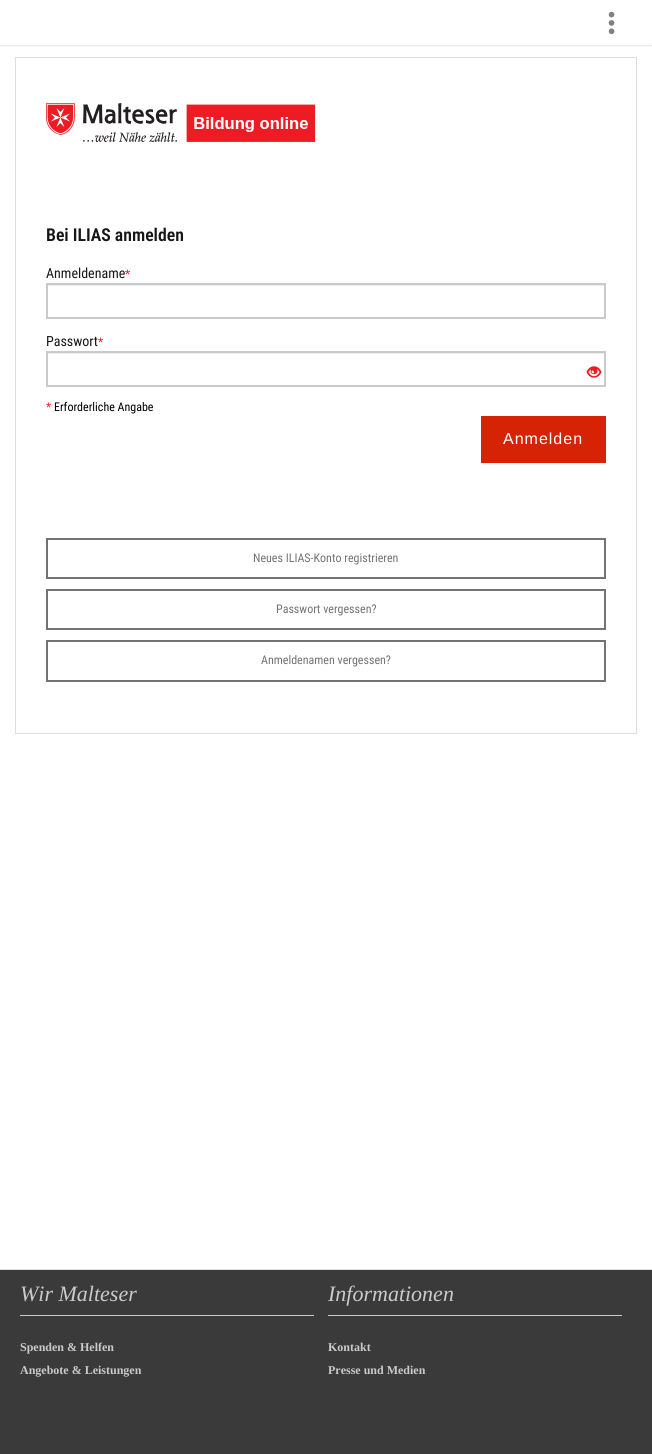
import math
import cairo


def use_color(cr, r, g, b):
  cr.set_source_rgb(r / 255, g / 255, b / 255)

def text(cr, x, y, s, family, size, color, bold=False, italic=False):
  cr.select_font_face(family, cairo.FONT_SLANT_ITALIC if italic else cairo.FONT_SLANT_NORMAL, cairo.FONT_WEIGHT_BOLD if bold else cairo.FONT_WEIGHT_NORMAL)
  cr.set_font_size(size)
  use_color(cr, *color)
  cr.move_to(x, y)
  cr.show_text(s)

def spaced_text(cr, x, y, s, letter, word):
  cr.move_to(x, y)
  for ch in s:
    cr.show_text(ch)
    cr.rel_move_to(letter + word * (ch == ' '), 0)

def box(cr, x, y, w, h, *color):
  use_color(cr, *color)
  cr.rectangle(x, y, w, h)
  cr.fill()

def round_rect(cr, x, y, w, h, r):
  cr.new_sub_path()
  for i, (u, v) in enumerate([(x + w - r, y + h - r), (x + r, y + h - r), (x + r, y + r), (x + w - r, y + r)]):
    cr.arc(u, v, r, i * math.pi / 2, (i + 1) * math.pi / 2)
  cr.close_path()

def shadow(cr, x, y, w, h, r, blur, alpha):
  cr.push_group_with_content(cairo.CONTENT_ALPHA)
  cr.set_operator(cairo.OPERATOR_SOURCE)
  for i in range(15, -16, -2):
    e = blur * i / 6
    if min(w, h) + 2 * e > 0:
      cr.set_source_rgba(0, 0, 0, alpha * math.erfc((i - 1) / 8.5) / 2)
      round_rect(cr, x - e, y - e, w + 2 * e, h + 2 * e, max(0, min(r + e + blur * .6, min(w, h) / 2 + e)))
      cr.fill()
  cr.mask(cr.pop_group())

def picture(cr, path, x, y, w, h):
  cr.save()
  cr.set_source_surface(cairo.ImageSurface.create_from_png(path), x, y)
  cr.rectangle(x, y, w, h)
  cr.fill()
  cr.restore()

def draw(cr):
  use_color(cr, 255, 255, 255)
  cr.paint()
  cr.save()
  cr.rectangle(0, 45, 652, 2)
  cr.clip()
  use_color(cr, 0, 0, 0)
  shadow(cr, 0, 1, 652, 45, 0, 1, 0.1)
  cr.restore()
  picture(cr, "img_01.png", 608, 11, 7, 24)
  cr.rectangle(15.5, 57.5, 621, 676)
  use_color(cr, 221, 221, 221)
  cr.set_line_width(1)
  cr.stroke()
  picture(cr, "img_02.png", 46, 103, 270, 39)
  box(cr, 48, 285, 556, 1, 236, 236, 236)
  cr.rectangle(47, 284, 558, 34)
  use_color(cr, 202, 202, 202)
  cr.set_line_width(2)
  cr.stroke()
  box(cr, 48, 353, 556, 1, 236, 236, 236)
  cr.rectangle(47, 352, 558, 34)
  use_color(cr, 202, 202, 202)
  cr.stroke()
  picture(cr, "img_03.png", 586, 366, 16, 12)
  box(cr, 481, 416, 125, 47, 215, 35, 5)
  cr.rectangle(47, 539, 558, 39)
  use_color(cr, 115, 115, 115)
  cr.stroke()
  cr.rectangle(47, 590, 558, 39)
  cr.stroke()
  cr.rectangle(47, 641, 558, 40)
  cr.stroke()
  box(cr, 0, 1269, 652, 1, 221, 221, 221)
  box(cr, 0, 1270, 652, 184, 58, 58, 58)
  box(cr, 20, 1315, 294, 1, 202, 202, 202)
  box(cr, 328, 1315, 294, 1, 202, 202, 202)
  text(cr, 46, 241, "Bei ILIAS anmelden", "Roboto Condensed SemiBold", 17.75, (22, 22, 22))
  text(cr, 46, 278, "Anmeldename", "Roboto Condensed", 14, (22, 22, 22))
  text(cr, 125, 278, "*", "Roboto Condensed", 12, (237, 28, 36))
  text(cr, 46, 346, "Passwort", "Roboto Condensed", 14, (22, 22, 22))
  text(cr, 98, 346, "*", "Roboto Condensed", 12, (237, 28, 36))
  text(cr, 46, 411, "*", "Roboto Condensed", 12, (237, 28, 36))
  text(cr, 54, 411, "Erforderliche Angabe", "Roboto Condensed", 12, (0, 0, 0))
  cr.select_font_face("Liberation Sans")
  cr.set_font_size(16)
  use_color(cr, 255, 255, 255)
  spaced_text(cr, 503, 444, "Anmelden", 1, 0)
  text(cr, 253, 562, "Neues ILIAS-Konto registrieren", "Roboto Condensed", 12, (115, 115, 115))
  text(cr, 276, 613, "Passwort vergessen?", "Roboto Condensed", 12, (115, 115, 115))
  text(cr, 261, 664, "Anmeldenamen vergessen?", "Roboto Condensed", 12, (115, 115, 115))
  text(cr, 20, 1301, "Wir Malteser", "Liberation Serif", 22, (202, 202, 202), italic=True)
  text(cr, 20, 1351, "Spenden & Helfen", "Liberation Serif", 12, (202, 202, 202), bold=True)
  text(cr, 20, 1374, "Angebote & Leistungen", "Liberation Serif", 12, (202, 202, 202), bold=True)
  text(cr, 328, 1301, "Informationen", "Liberation Serif", 22, (202, 202, 202), italic=True)
  text(cr, 328, 1351, "Kontakt", "Liberation Serif", 12, (202, 202, 202), bold=True)
  text(cr, 328, 1374, "Presse und Medien", "Liberation Serif", 12, (202, 202, 202), bold=True)


surface = cairo.ImageSurface(cairo.FORMAT_RGB24, 652, 1454)
cr = cairo.Context(surface)
options = cairo.FontOptions()
options.set_hint_metrics(cairo.HINT_METRICS_OFF)
options.set_hint_style(cairo.HINT_STYLE_NONE)
cr.set_font_options(options)
cr.set_miter_limit(4)
draw(cr)
surface.write_to_png("out.png")
